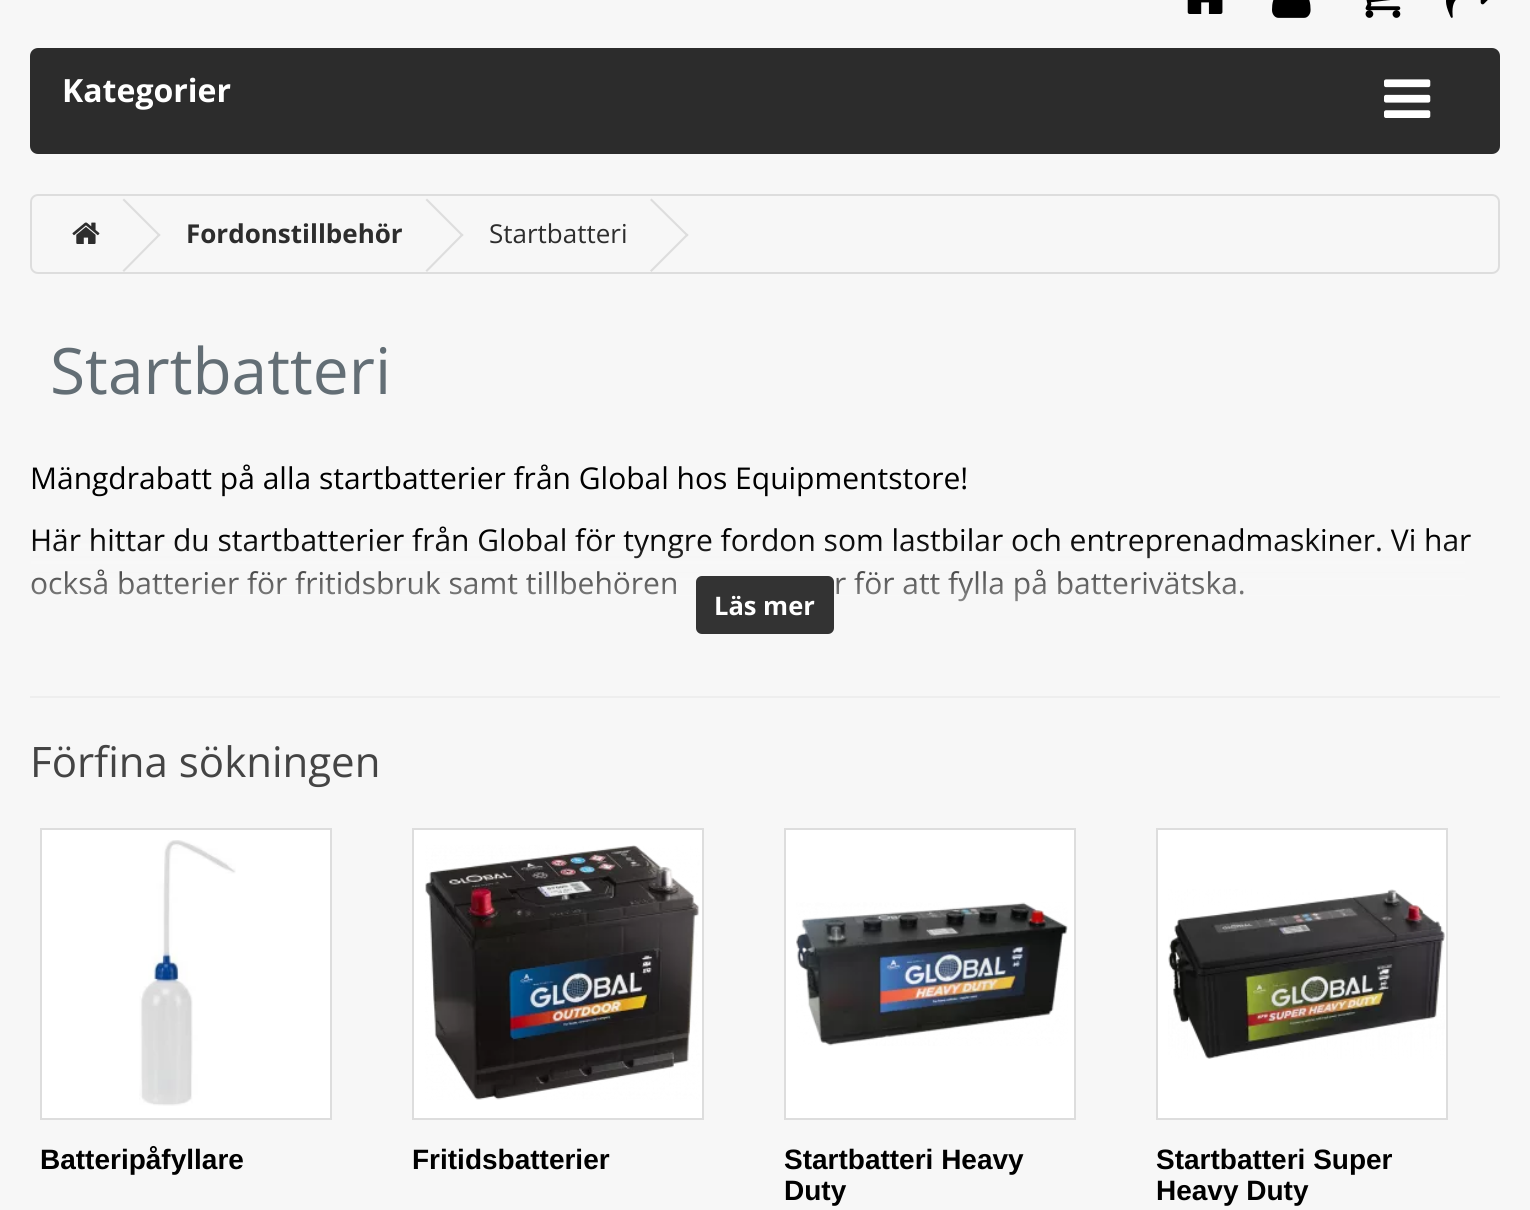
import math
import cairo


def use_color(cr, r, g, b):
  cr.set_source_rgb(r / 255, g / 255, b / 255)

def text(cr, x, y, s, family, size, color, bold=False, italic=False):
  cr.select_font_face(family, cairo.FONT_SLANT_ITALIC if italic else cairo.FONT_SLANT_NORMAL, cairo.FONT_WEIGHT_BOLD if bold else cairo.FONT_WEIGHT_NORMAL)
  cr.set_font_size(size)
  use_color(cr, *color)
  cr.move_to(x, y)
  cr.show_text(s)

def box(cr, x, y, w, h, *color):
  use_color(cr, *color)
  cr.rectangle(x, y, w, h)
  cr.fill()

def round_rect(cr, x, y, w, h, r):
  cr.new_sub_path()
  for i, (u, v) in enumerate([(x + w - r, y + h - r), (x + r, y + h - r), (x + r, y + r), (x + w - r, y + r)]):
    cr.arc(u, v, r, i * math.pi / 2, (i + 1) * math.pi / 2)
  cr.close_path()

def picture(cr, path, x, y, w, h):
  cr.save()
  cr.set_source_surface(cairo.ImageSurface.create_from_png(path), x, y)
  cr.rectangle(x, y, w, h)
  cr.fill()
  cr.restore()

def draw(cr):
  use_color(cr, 247, 247, 247)
  cr.paint()
  picture(cr, "img_01.png", 1187, 0, 36, 14)
  picture(cr, "img_02.png", 1272, 0, 39, 18)
  picture(cr, "img_03.png", 1365, 0, 36, 18)
  picture(cr, "img_04.png", 1446, 0, 42, 18)
  use_color(cr, 44, 44, 44)
  round_rect(cr, 31, 49, 1468, 104, 7)
  cr.fill_preserve()
  cr.stroke()
  picture(cr, "img_05.png", 1384, 79, 47, 39)
  round_rect(cr, 31, 195, 1468, 78, 7)
  use_color(cr, 221, 221, 221)
  cr.stroke()
  picture(cr, "img_06.png", 72, 222, 28, 22)
  cr.new_path()
  cr.move_to(122.5, 200)
  cr.line_to(124, 198.5)
  cr.line_to(160.5, 235)
  cr.line_to(159, 236.5)
  cr.close_path()
  cr.fill()
  cr.new_path()
  cr.move_to(122.5, 270.5)
  cr.line_to(159, 233.5)
  cr.line_to(160.5, 235)
  cr.line_to(124, 272)
  cr.close_path()
  cr.fill()
  cr.new_path()
  cr.move_to(425.5, 200)
  cr.line_to(427, 198.5)
  cr.line_to(463.5, 235)
  cr.line_to(462, 236.5)
  cr.close_path()
  cr.fill()
  cr.new_path()
  cr.move_to(425.5, 270.5)
  cr.line_to(462, 233.5)
  cr.line_to(463.5, 235)
  cr.line_to(427, 272)
  cr.close_path()
  cr.fill()
  cr.new_path()
  cr.move_to(650, 200)
  cr.line_to(651.5, 198.5)
  cr.line_to(688.5, 235)
  cr.line_to(687, 236.5)
  cr.close_path()
  cr.fill()
  cr.new_path()
  cr.move_to(650, 270.5)
  cr.line_to(687, 233.5)
  cr.line_to(688.5, 235)
  cr.line_to(651.5, 272)
  cr.close_path()
  cr.fill()
  box(cr, 30, 696, 1470, 2, 238, 238, 238)
  use_color(cr, 255, 255, 255)
  cr.rectangle(41, 829, 290, 290)
  cr.fill_preserve()
  use_color(cr, 221, 221, 221)
  cr.stroke()
  picture(cr, "img_07.png", 139, 840, 97, 266)
  use_color(cr, 255, 255, 255)
  cr.rectangle(413, 829, 290, 290)
  cr.fill_preserve()
  use_color(cr, 221, 221, 221)
  cr.stroke()
  picture(cr, "img_08.png", 425, 845, 275, 255)
  use_color(cr, 255, 255, 255)
  cr.rectangle(785, 829, 290, 290)
  cr.fill_preserve()
  use_color(cr, 221, 221, 221)
  cr.stroke()
  picture(cr, "img_09.png", 796, 902, 272, 144)
  use_color(cr, 255, 255, 255)
  cr.rectangle(1157, 829, 290, 290)
  cr.fill_preserve()
  use_color(cr, 221, 221, 221)
  cr.stroke()
  picture(cr, "img_10.png", 1168, 889, 277, 170)
  text(cr, 62, 102, "Kategorier", "Open Sans", 32, (255, 255, 255), bold=True)
  text(cr, 186, 243, "Fordonstillbehör", "Open Sans", 26, (45, 45, 45), bold=True)
  text(cr, 489, 243, "Startbatteri", "Open Sans", 26, (45, 45, 45))
  text(cr, 50, 394, "Startbatteri", "Open Sans", 64, (99, 110, 117))
  text(cr, 30, 489, "Mängdrabatt på alla startbatterier från Global hos Equipmentstore!", "Open Sans", 30, (0, 0, 0))
  text(cr, 30, 551, "Här hittar du startbatterier från Global för tyngre fordon som lastbilar och entreprenadmaskiner. Vi har", "Open Sans", 30, (0, 0, 0))
  text(cr, 30, 594, "också batterier för fritidsbruk samt tillbehören", "Open Sans", 30, (0, 0, 0))
  text(cr, 834, 594, "r för att fylla på batterivätska.", "Open Sans", 30, (0, 0, 0))
  gradient = cairo.LinearGradient(765, 536, 765, 656)
  gradient.add_color_stop_rgba(0, 0.969, 0.969, 0.969, 0)
  gradient.add_color_stop_rgba(1, 0.969, 0.969, 0.969, 1)
  cr.set_source(gradient)
  cr.rectangle(31, 539, 1434, 63)
  cr.fill()
  use_color(cr, 51, 51, 51)
  round_rect(cr, 697, 577, 136, 56, 5)
  cr.fill_preserve()
  cr.stroke()
  text(cr, 714, 615, "Läs mer", "Open Sans", 25.5, (255, 255, 255), bold=True)
  text(cr, 30, 777, "Förfina sökningen", "Open Sans", 42, (68, 68, 68))
  text(cr, 40, 1169, "Batteripåfyllare", "Liberation Sans", 28, (0, 0, 0), bold=True)
  text(cr, 412, 1169, "Fritidsbatterier", "Liberation Sans", 28, (0, 0, 0), bold=True)
  text(cr, 784, 1169, "Startbatteri Heavy", "Liberation Sans", 28, (0, 0, 0), bold=True)
  text(cr, 784, 1200, "Duty", "Liberation Sans", 28, (0, 0, 0), bold=True)
  text(cr, 1156, 1169, "Startbatteri Super", "Liberation Sans", 28, (0, 0, 0), bold=True)
  text(cr, 1156, 1200, "Heavy Duty", "Liberation Sans", 28, (0, 0, 0), bold=True)


surface = cairo.ImageSurface(cairo.FORMAT_RGB24, 1530, 1210)
cr = cairo.Context(surface)
options = cairo.FontOptions()
options.set_hint_metrics(cairo.HINT_METRICS_OFF)
options.set_hint_style(cairo.HINT_STYLE_NONE)
cr.set_font_options(options)
cr.set_miter_limit(4)
draw(cr)
surface.write_to_png("out.png")
